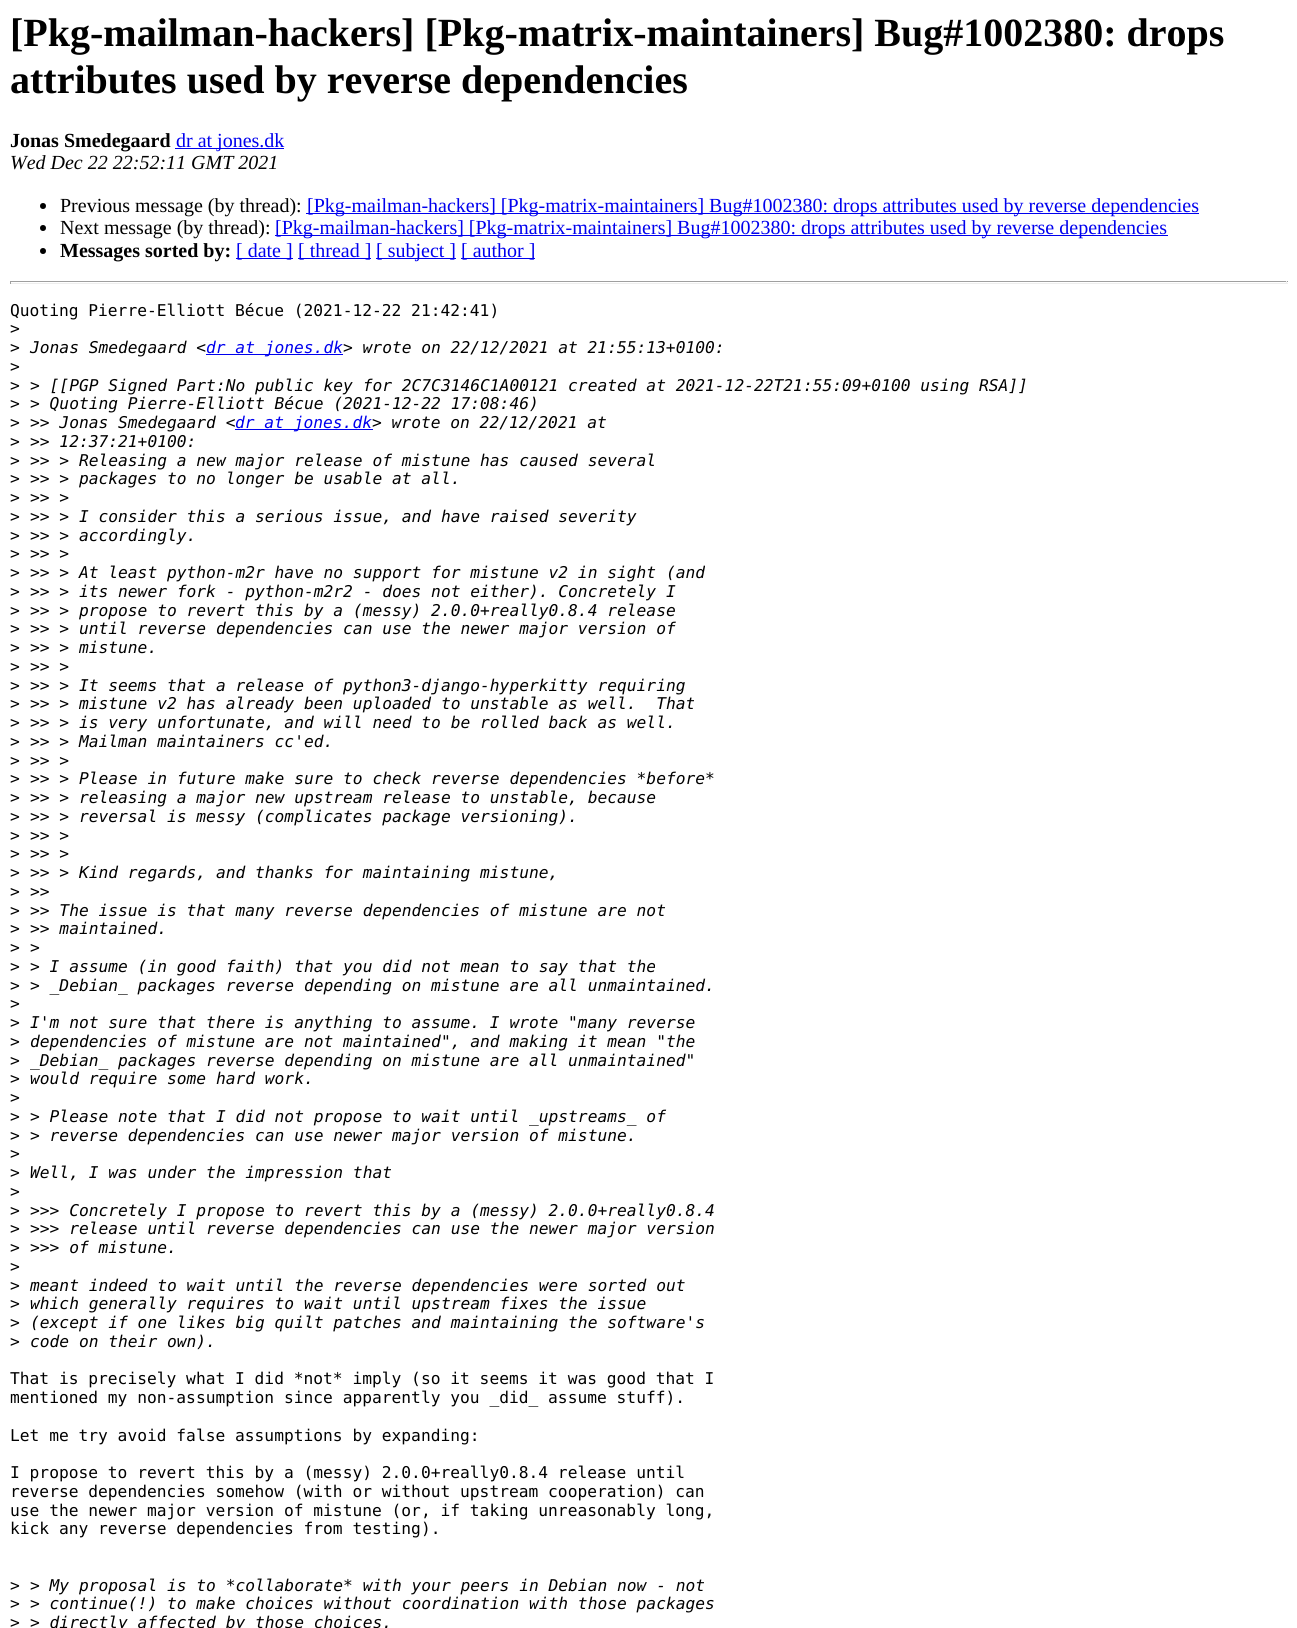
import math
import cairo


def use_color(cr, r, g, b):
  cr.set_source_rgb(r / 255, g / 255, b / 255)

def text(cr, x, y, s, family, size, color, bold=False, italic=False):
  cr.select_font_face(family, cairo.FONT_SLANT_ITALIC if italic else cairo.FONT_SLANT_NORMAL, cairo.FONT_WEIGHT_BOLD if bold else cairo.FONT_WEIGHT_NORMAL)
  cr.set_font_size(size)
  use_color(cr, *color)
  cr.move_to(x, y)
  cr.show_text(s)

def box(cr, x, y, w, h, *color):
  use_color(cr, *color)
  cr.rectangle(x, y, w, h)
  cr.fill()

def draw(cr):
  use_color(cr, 255, 255, 255)
  cr.paint()
  box(cr, 175, 148, 109, 1, 0, 0, 238)
  use_color(cr, 0, 0, 0)
  cr.arc(43, 206, 3, 0, 2 * math.pi)
  cr.fill()
  box(cr, 306, 213, 893, 1, 0, 0, 238)
  use_color(cr, 0, 0, 0)
  cr.arc(43, 228, 3, 0, 2 * math.pi)
  cr.fill()
  box(cr, 275, 235, 893, 1, 0, 0, 238)
  use_color(cr, 0, 0, 0)
  cr.arc(43, 251, 3, 0, 2 * math.pi)
  cr.fill()
  box(cr, 236, 258, 57, 1, 0, 0, 238)
  box(cr, 298, 258, 73, 1, 0, 0, 238)
  box(cr, 376, 258, 80, 1, 0, 0, 238)
  box(cr, 461, 258, 74, 1, 0, 0, 238)
  box(cr, 10, 281, 1278, 1, 159, 159, 159)
  box(cr, 1286, 281, 1, 3, 238, 238, 238)
  box(cr, 10, 283, 1278, 1, 238, 238, 238)
  box(cr, 10, 281, 1, 3, 159, 159, 159)
  box(cr, 206, 354, 137, 1, 0, 0, 238)
  box(cr, 235, 429, 138, 1, 0, 0, 238)
  text(cr, 10, 46, "[Pkg-mailman-hackers] [Pkg-matrix-maintainers] Bug#1002380: drops", "Liberation Serif", 40, (0, 0, 0), bold=True)
  text(cr, 10, 93, "attributes used by reverse dependencies", "Liberation Serif", 40, (0, 0, 0), bold=True)
  text(cr, 10, 147, "Jonas Smedegaard", "Liberation Serif", 20, (0, 0, 0), bold=True)
  text(cr, 176, 147, "dr at jones.dk", "Liberation Serif", 20, (0, 0, 238))
  text(cr, 10, 169, "Wed Dec 22 22:52:11 GMT 2021", "Liberation Serif", 20, (0, 0, 0), italic=True)
  text(cr, 60, 212, "Previous message (by thread):", "Liberation Serif", 20, (0, 0, 0))
  text(cr, 307, 212, "[Pkg-mailman-hackers] [Pkg-matrix-maintainers] Bug#1002380: drops attributes used by reverse dependencies", "Liberation Serif", 20, (0, 0, 238))
  text(cr, 60, 234, "Next message (by thread):", "Liberation Serif", 20, (0, 0, 0))
  text(cr, 275, 234, "[Pkg-mailman-hackers] [Pkg-matrix-maintainers] Bug#1002380: drops attributes used by reverse dependencies", "Liberation Serif", 20, (0, 0, 238))
  text(cr, 60, 257, "Messages sorted by:", "Liberation Serif", 20, (0, 0, 0), bold=True)
  text(cr, 236, 257, "[ date ]", "Liberation Serif", 20, (0, 0, 238))
  text(cr, 298, 257, "[ thread ]", "Liberation Serif", 20, (0, 0, 238))
  text(cr, 376, 257, "[ subject ]", "Liberation Serif", 20, (0, 0, 238))
  text(cr, 461, 257, "[ author ]", "Liberation Serif", 20, (0, 0, 238))
  text(cr, 10, 316, "Quoting Pierre-Elliott Bécue (2021-12-22 21:42:41)", "DejaVu Sans Mono", 16.25, (0, 0, 0))
  text(cr, 10, 334, ">", "DejaVu Sans Mono", 16.25, (0, 0, 0))
  text(cr, 10, 353, ">", "DejaVu Sans Mono", 16.25, (0, 0, 0))
  text(cr, 30, 353, "Jonas Smedegaard <", "DejaVu Sans Mono", 16.25, (0, 0, 0), italic=True)
  text(cr, 206, 353, "dr at jones.dk", "DejaVu Sans Mono", 16.25, (0, 0, 238), italic=True)
  text(cr, 343, 353, "> wrote on 22/12/2021 at 21:55:13+0100:", "DejaVu Sans Mono", 16.25, (0, 0, 0), italic=True)
  text(cr, 10, 372, ">", "DejaVu Sans Mono", 16.25, (0, 0, 0))
  text(cr, 10, 391, ">", "DejaVu Sans Mono", 16.25, (0, 0, 0))
  text(cr, 30, 391, "> [[PGP Signed Part:No public key for 2C7C3146C1A00121 created at 2021-12-22T21:55:09+0100 using RSA]]", "DejaVu Sans Mono", 16.25, (0, 0, 0), italic=True)
  text(cr, 10, 409, ">", "DejaVu Sans Mono", 16.25, (0, 0, 0))
  text(cr, 30, 409, "> Quoting Pierre-Elliott Bécue (2021-12-22 17:08:46)", "DejaVu Sans Mono", 16.25, (0, 0, 0), italic=True)
  text(cr, 10, 428, ">", "DejaVu Sans Mono", 16.25, (0, 0, 0))
  text(cr, 30, 428, ">> Jonas Smedegaard <", "DejaVu Sans Mono", 16.25, (0, 0, 0), italic=True)
  text(cr, 235, 428, "dr at jones.dk", "DejaVu Sans Mono", 16.25, (0, 0, 238), italic=True)
  text(cr, 372, 428, "> wrote on 22/12/2021 at", "DejaVu Sans Mono", 16.25, (0, 0, 0), italic=True)
  text(cr, 10, 447, ">", "DejaVu Sans Mono", 16.25, (0, 0, 0))
  text(cr, 30, 447, ">> 12:37:21+0100:", "DejaVu Sans Mono", 16.25, (0, 0, 0), italic=True)
  text(cr, 10, 466, ">", "DejaVu Sans Mono", 16.25, (0, 0, 0))
  text(cr, 30, 466, ">> > Releasing a new major release of mistune has caused several", "DejaVu Sans Mono", 16.25, (0, 0, 0), italic=True)
  text(cr, 10, 484, ">", "DejaVu Sans Mono", 16.25, (0, 0, 0))
  text(cr, 30, 484, ">> > packages to no longer be usable at all.", "DejaVu Sans Mono", 16.25, (0, 0, 0), italic=True)
  text(cr, 10, 503, ">", "DejaVu Sans Mono", 16.25, (0, 0, 0))
  text(cr, 30, 503, ">> >", "DejaVu Sans Mono", 16.25, (0, 0, 0), italic=True)
  text(cr, 10, 522, ">", "DejaVu Sans Mono", 16.25, (0, 0, 0))
  text(cr, 30, 522, ">> > I consider this a serious issue, and have raised severity", "DejaVu Sans Mono", 16.25, (0, 0, 0), italic=True)
  text(cr, 10, 541, ">", "DejaVu Sans Mono", 16.25, (0, 0, 0))
  text(cr, 30, 541, ">> > accordingly.", "DejaVu Sans Mono", 16.25, (0, 0, 0), italic=True)
  text(cr, 10, 559, ">", "DejaVu Sans Mono", 16.25, (0, 0, 0))
  text(cr, 30, 559, ">> >", "DejaVu Sans Mono", 16.25, (0, 0, 0), italic=True)
  text(cr, 10, 578, ">", "DejaVu Sans Mono", 16.25, (0, 0, 0))
  text(cr, 30, 578, ">> > At least python-m2r have no support for mistune v2 in sight (and", "DejaVu Sans Mono", 16.25, (0, 0, 0), italic=True)
  text(cr, 10, 597, ">", "DejaVu Sans Mono", 16.25, (0, 0, 0))
  text(cr, 30, 597, ">> > its newer fork - python-m2r2 - does not either). Concretely I", "DejaVu Sans Mono", 16.25, (0, 0, 0), italic=True)
  text(cr, 10, 616, ">", "DejaVu Sans Mono", 16.25, (0, 0, 0))
  text(cr, 30, 616, ">> > propose to revert this by a (messy) 2.0.0+really0.8.4 release", "DejaVu Sans Mono", 16.25, (0, 0, 0), italic=True)
  text(cr, 10, 634, ">", "DejaVu Sans Mono", 16.25, (0, 0, 0))
  text(cr, 30, 634, ">> > until reverse dependencies can use the newer major version of", "DejaVu Sans Mono", 16.25, (0, 0, 0), italic=True)
  text(cr, 10, 653, ">", "DejaVu Sans Mono", 16.25, (0, 0, 0))
  text(cr, 30, 653, ">> > mistune.", "DejaVu Sans Mono", 16.25, (0, 0, 0), italic=True)
  text(cr, 10, 672, ">", "DejaVu Sans Mono", 16.25, (0, 0, 0))
  text(cr, 30, 672, ">> >", "DejaVu Sans Mono", 16.25, (0, 0, 0), italic=True)
  text(cr, 10, 691, ">", "DejaVu Sans Mono", 16.25, (0, 0, 0))
  text(cr, 30, 691, ">> > It seems that a release of python3-django-hyperkitty requiring", "DejaVu Sans Mono", 16.25, (0, 0, 0), italic=True)
  text(cr, 10, 709, ">", "DejaVu Sans Mono", 16.25, (0, 0, 0))
  text(cr, 30, 709, ">> > mistune v2 has already been uploaded to unstable as well.  That", "DejaVu Sans Mono", 16.25, (0, 0, 0), italic=True)
  text(cr, 10, 728, ">", "DejaVu Sans Mono", 16.25, (0, 0, 0))
  text(cr, 30, 728, ">> > is very unfortunate, and will need to be rolled back as well.", "DejaVu Sans Mono", 16.25, (0, 0, 0), italic=True)
  text(cr, 10, 747, ">", "DejaVu Sans Mono", 16.25, (0, 0, 0))
  text(cr, 30, 747, ">> > Mailman maintainers cc'ed.", "DejaVu Sans Mono", 16.25, (0, 0, 0), italic=True)
  text(cr, 10, 766, ">", "DejaVu Sans Mono", 16.25, (0, 0, 0))
  text(cr, 30, 766, ">> >", "DejaVu Sans Mono", 16.25, (0, 0, 0), italic=True)
  text(cr, 10, 784, ">", "DejaVu Sans Mono", 16.25, (0, 0, 0))
  text(cr, 30, 784, ">> > Please in future make sure to check reverse dependencies *before*", "DejaVu Sans Mono", 16.25, (0, 0, 0), italic=True)
  text(cr, 10, 803, ">", "DejaVu Sans Mono", 16.25, (0, 0, 0))
  text(cr, 30, 803, ">> > releasing a major new upstream release to unstable, because", "DejaVu Sans Mono", 16.25, (0, 0, 0), italic=True)
  text(cr, 10, 822, ">", "DejaVu Sans Mono", 16.25, (0, 0, 0))
  text(cr, 30, 822, ">> > reversal is messy (complicates package versioning).", "DejaVu Sans Mono", 16.25, (0, 0, 0), italic=True)
  text(cr, 10, 841, ">", "DejaVu Sans Mono", 16.25, (0, 0, 0))
  text(cr, 30, 841, ">> >", "DejaVu Sans Mono", 16.25, (0, 0, 0), italic=True)
  text(cr, 10, 859, ">", "DejaVu Sans Mono", 16.25, (0, 0, 0))
  text(cr, 30, 859, ">> >", "DejaVu Sans Mono", 16.25, (0, 0, 0), italic=True)
  text(cr, 10, 878, ">", "DejaVu Sans Mono", 16.25, (0, 0, 0))
  text(cr, 30, 878, ">> > Kind regards, and thanks for maintaining mistune,", "DejaVu Sans Mono", 16.25, (0, 0, 0), italic=True)
  text(cr, 10, 897, ">", "DejaVu Sans Mono", 16.25, (0, 0, 0))
  text(cr, 30, 897, ">>", "DejaVu Sans Mono", 16.25, (0, 0, 0), italic=True)
  text(cr, 10, 916, ">", "DejaVu Sans Mono", 16.25, (0, 0, 0))
  text(cr, 30, 916, ">> The issue is that many reverse dependencies of mistune are not", "DejaVu Sans Mono", 16.25, (0, 0, 0), italic=True)
  text(cr, 10, 934, ">", "DejaVu Sans Mono", 16.25, (0, 0, 0))
  text(cr, 30, 934, ">> maintained.", "DejaVu Sans Mono", 16.25, (0, 0, 0), italic=True)
  text(cr, 10, 953, ">", "DejaVu Sans Mono", 16.25, (0, 0, 0))
  text(cr, 30, 953, ">", "DejaVu Sans Mono", 16.25, (0, 0, 0), italic=True)
  text(cr, 10, 972, ">", "DejaVu Sans Mono", 16.25, (0, 0, 0))
  text(cr, 30, 972, "> I assume (in good faith) that you did not mean to say that the", "DejaVu Sans Mono", 16.25, (0, 0, 0), italic=True)
  text(cr, 10, 991, ">", "DejaVu Sans Mono", 16.25, (0, 0, 0))
  text(cr, 30, 991, "> _Debian_ packages reverse depending on mistune are all unmaintained.", "DejaVu Sans Mono", 16.25, (0, 0, 0), italic=True)
  text(cr, 10, 1009, ">", "DejaVu Sans Mono", 16.25, (0, 0, 0))
  text(cr, 10, 1028, ">", "DejaVu Sans Mono", 16.25, (0, 0, 0))
  text(cr, 30, 1028, "I'm not sure that there is anything to assume. I wrote \"many reverse", "DejaVu Sans Mono", 16.25, (0, 0, 0), italic=True)
  text(cr, 10, 1047, ">", "DejaVu Sans Mono", 16.25, (0, 0, 0))
  text(cr, 30, 1047, "dependencies of mistune are not maintained\", and making it mean \"the", "DejaVu Sans Mono", 16.25, (0, 0, 0), italic=True)
  text(cr, 10, 1066, ">", "DejaVu Sans Mono", 16.25, (0, 0, 0))
  text(cr, 30, 1066, "_Debian_ packages reverse depending on mistune are all unmaintained\"", "DejaVu Sans Mono", 16.25, (0, 0, 0), italic=True)
  text(cr, 10, 1084, ">", "DejaVu Sans Mono", 16.25, (0, 0, 0))
  text(cr, 30, 1084, "would require some hard work.", "DejaVu Sans Mono", 16.25, (0, 0, 0), italic=True)
  text(cr, 10, 1103, ">", "DejaVu Sans Mono", 16.25, (0, 0, 0))
  text(cr, 10, 1122, ">", "DejaVu Sans Mono", 16.25, (0, 0, 0))
  text(cr, 30, 1122, "> Please note that I did not propose to wait until _upstreams_ of", "DejaVu Sans Mono", 16.25, (0, 0, 0), italic=True)
  text(cr, 10, 1141, ">", "DejaVu Sans Mono", 16.25, (0, 0, 0))
  text(cr, 30, 1141, "> reverse dependencies can use newer major version of mistune.", "DejaVu Sans Mono", 16.25, (0, 0, 0), italic=True)
  text(cr, 10, 1159, ">", "DejaVu Sans Mono", 16.25, (0, 0, 0))
  text(cr, 10, 1178, ">", "DejaVu Sans Mono", 16.25, (0, 0, 0))
  text(cr, 30, 1178, "Well, I was under the impression that", "DejaVu Sans Mono", 16.25, (0, 0, 0), italic=True)
  text(cr, 10, 1197, ">", "DejaVu Sans Mono", 16.25, (0, 0, 0))
  text(cr, 10, 1216, ">", "DejaVu Sans Mono", 16.25, (0, 0, 0))
  text(cr, 30, 1216, ">>> Concretely I propose to revert this by a (messy) 2.0.0+really0.8.4", "DejaVu Sans Mono", 16.25, (0, 0, 0), italic=True)
  text(cr, 10, 1234, ">", "DejaVu Sans Mono", 16.25, (0, 0, 0))
  text(cr, 30, 1234, ">>> release until reverse dependencies can use the newer major version", "DejaVu Sans Mono", 16.25, (0, 0, 0), italic=True)
  text(cr, 10, 1253, ">", "DejaVu Sans Mono", 16.25, (0, 0, 0))
  text(cr, 30, 1253, ">>> of mistune.", "DejaVu Sans Mono", 16.25, (0, 0, 0), italic=True)
  text(cr, 10, 1272, ">", "DejaVu Sans Mono", 16.25, (0, 0, 0))
  text(cr, 10, 1291, ">", "DejaVu Sans Mono", 16.25, (0, 0, 0))
  text(cr, 30, 1291, "meant indeed to wait until the reverse dependencies were sorted out", "DejaVu Sans Mono", 16.25, (0, 0, 0), italic=True)
  text(cr, 10, 1309, ">", "DejaVu Sans Mono", 16.25, (0, 0, 0))
  text(cr, 30, 1309, "which generally requires to wait until upstream fixes the issue", "DejaVu Sans Mono", 16.25, (0, 0, 0), italic=True)
  text(cr, 10, 1328, ">", "DejaVu Sans Mono", 16.25, (0, 0, 0))
  text(cr, 30, 1328, "(except if one likes big quilt patches and maintaining the software's", "DejaVu Sans Mono", 16.25, (0, 0, 0), italic=True)
  text(cr, 10, 1347, ">", "DejaVu Sans Mono", 16.25, (0, 0, 0))
  text(cr, 30, 1347, "code on their own).", "DejaVu Sans Mono", 16.25, (0, 0, 0), italic=True)
  text(cr, 10, 1384, "That is precisely what I did *not* imply (so it seems it was good that I", "DejaVu Sans Mono", 16.25, (0, 0, 0))
  text(cr, 10, 1403, "mentioned my non-assumption since apparently you _did_ assume stuff).", "DejaVu Sans Mono", 16.25, (0, 0, 0))
  text(cr, 10, 1441, "Let me try avoid false assumptions by expanding:", "DejaVu Sans Mono", 16.25, (0, 0, 0))
  text(cr, 10, 1478, "I propose to revert this by a (messy) 2.0.0+really0.8.4 release until", "DejaVu Sans Mono", 16.25, (0, 0, 0))
  text(cr, 10, 1497, "reverse dependencies somehow (with or without upstream cooperation) can", "DejaVu Sans Mono", 16.25, (0, 0, 0))
  text(cr, 10, 1516, "use the newer major version of mistune (or, if taking unreasonably long,", "DejaVu Sans Mono", 16.25, (0, 0, 0))
  text(cr, 10, 1534, "kick any reverse dependencies from testing).", "DejaVu Sans Mono", 16.25, (0, 0, 0))
  text(cr, 10, 1591, ">", "DejaVu Sans Mono", 16.25, (0, 0, 0))
  text(cr, 30, 1591, "> My proposal is to *collaborate* with your peers in Debian now - not", "DejaVu Sans Mono", 16.25, (0, 0, 0), italic=True)
  text(cr, 10, 1609, ">", "DejaVu Sans Mono", 16.25, (0, 0, 0))
  text(cr, 30, 1609, "> continue(!) to make choices without coordination with those packages", "DejaVu Sans Mono", 16.25, (0, 0, 0), italic=True)
  text(cr, 10, 1628, ">", "DejaVu Sans Mono", 16.25, (0, 0, 0))
  text(cr, 30, 1628, "> directly affected by those choices.", "DejaVu Sans Mono", 16.25, (0, 0, 0), italic=True)


surface = cairo.ImageSurface(cairo.FORMAT_RGB24, 1297, 1628)
cr = cairo.Context(surface)
options = cairo.FontOptions()
options.set_hint_metrics(cairo.HINT_METRICS_OFF)
options.set_hint_style(cairo.HINT_STYLE_NONE)
cr.set_font_options(options)
cr.set_miter_limit(4)
draw(cr)
surface.write_to_png("out.png")
